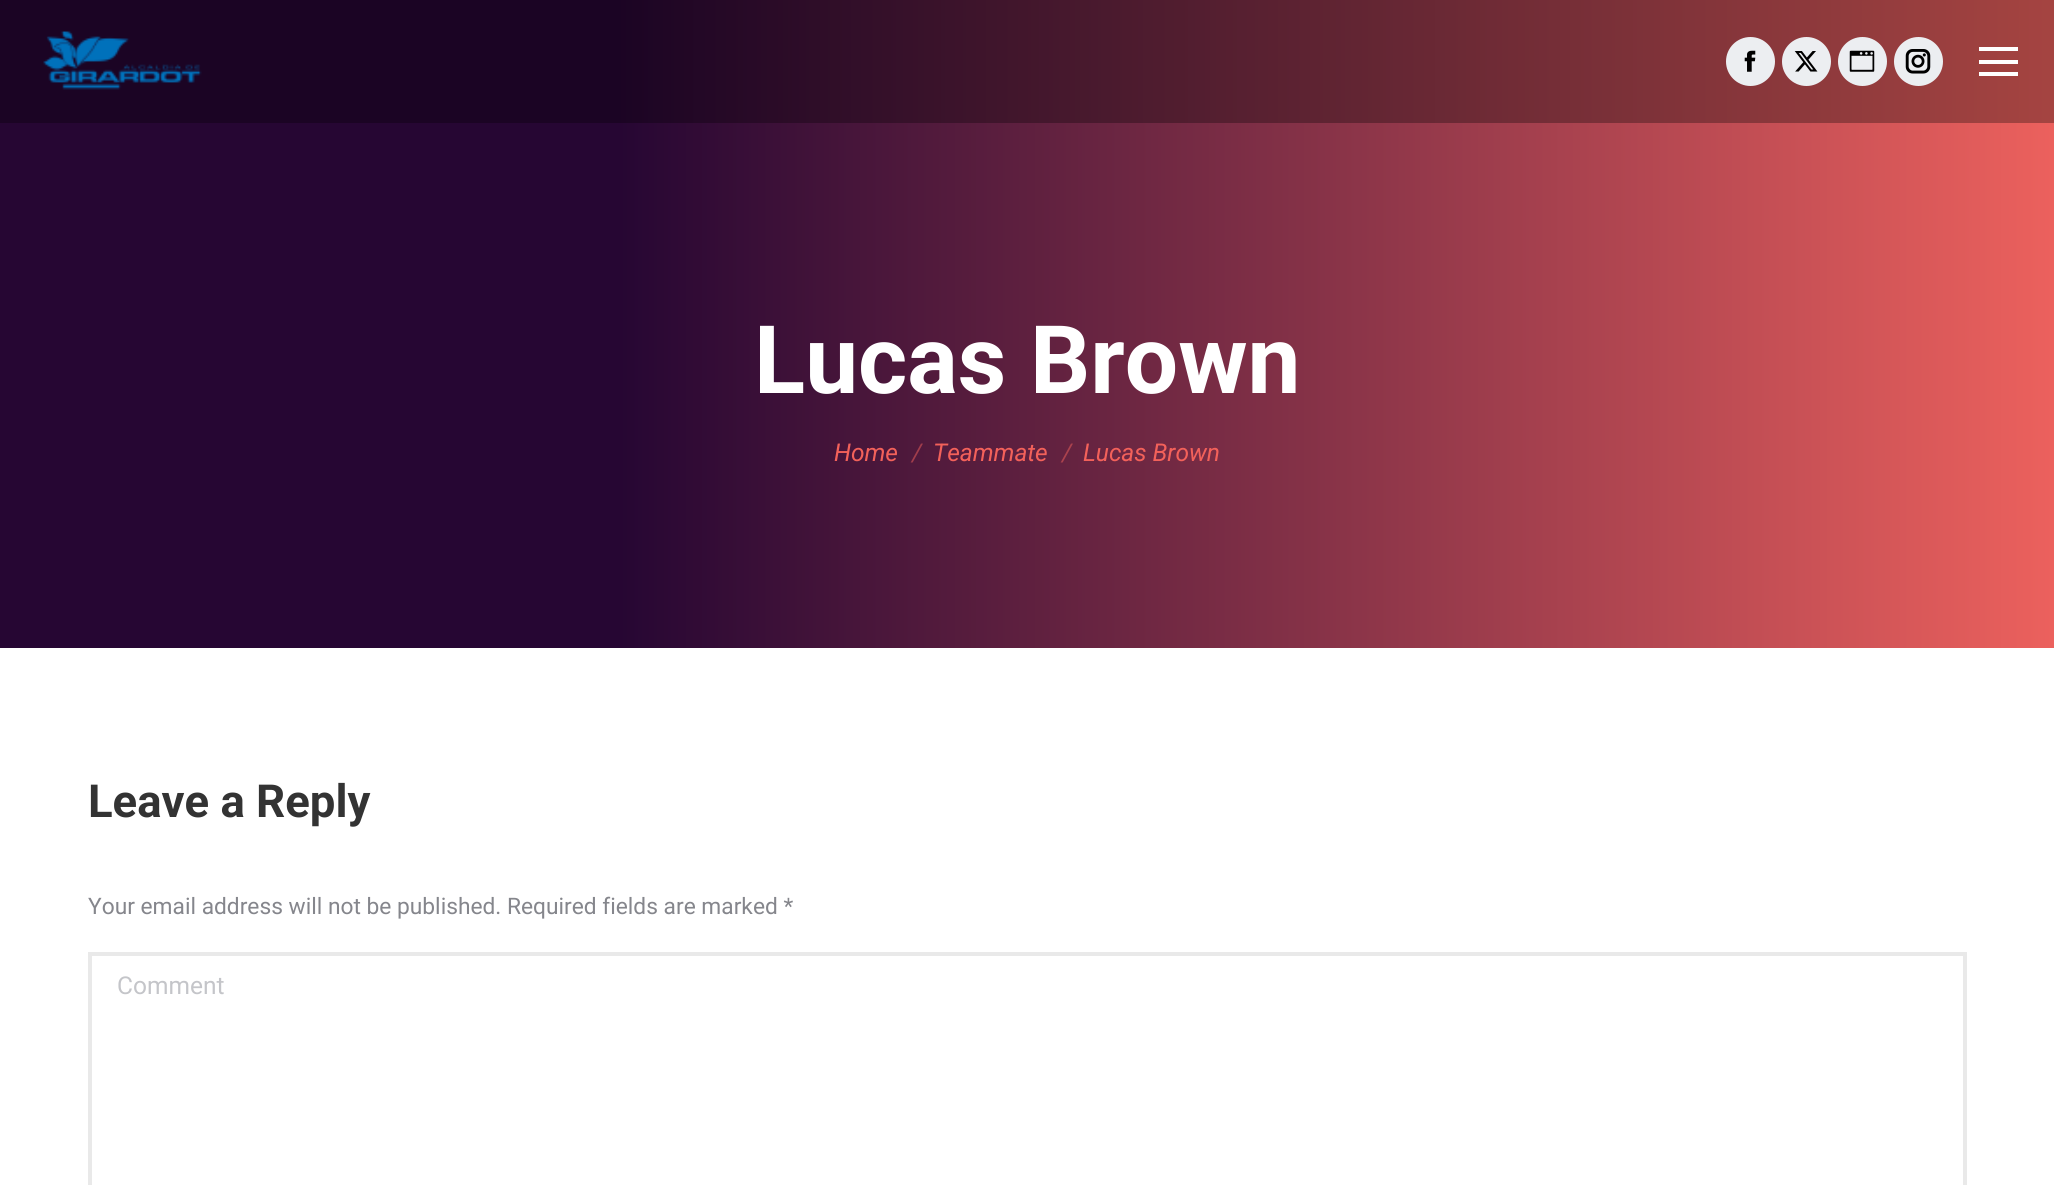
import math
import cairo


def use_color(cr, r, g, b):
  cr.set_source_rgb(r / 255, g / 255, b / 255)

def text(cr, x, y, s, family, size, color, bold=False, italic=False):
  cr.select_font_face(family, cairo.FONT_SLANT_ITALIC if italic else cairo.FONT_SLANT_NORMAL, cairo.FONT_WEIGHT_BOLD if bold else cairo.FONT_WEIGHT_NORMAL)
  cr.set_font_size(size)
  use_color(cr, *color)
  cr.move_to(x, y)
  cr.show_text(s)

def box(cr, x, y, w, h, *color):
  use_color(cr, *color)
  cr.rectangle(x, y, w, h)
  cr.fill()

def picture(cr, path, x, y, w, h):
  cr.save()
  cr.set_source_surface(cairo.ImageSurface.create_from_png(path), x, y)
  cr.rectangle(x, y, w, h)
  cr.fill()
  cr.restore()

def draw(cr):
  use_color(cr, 255, 255, 255)
  cr.paint()
  gradient = cairo.LinearGradient(0, 324, 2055, 324)
  gradient.add_color_stop_rgba(0.3, 0.106, 0.016, 0.141, 1)
  gradient.add_color_stop_rgba(1, 0.647, 0.267, 0.255, 1)
  cr.set_source(gradient)
  cr.rectangle(0, 0, 2054, 123)
  cr.fill()
  picture(cr, "img_01.png", 43, 31, 159, 59)
  use_color(cr, 236, 238, 241)
  cr.arc(1750.5, 61.5, 22.5, 0, 2 * math.pi)
  cr.fill_preserve()
  cr.set_line_width(4)
  cr.stroke()
  picture(cr, "img_02.png", 1744, 50, 12, 22)
  cr.arc(1806.5, 61.5, 22.5, 0, 2 * math.pi)
  cr.fill_preserve()
  cr.stroke()
  picture(cr, "img_03.png", 1794, 51, 24, 21)
  cr.arc(1862.5, 61.5, 22.5, 0, 2 * math.pi)
  cr.fill_preserve()
  cr.stroke()
  picture(cr, "img_04.png", 1849, 50, 26, 22)
  cr.arc(1918.5, 61.5, 22.5, 0, 2 * math.pi)
  cr.fill_preserve()
  cr.stroke()
  picture(cr, "img_05.png", 1905, 49, 26, 25)
  box(cr, 1979, 47, 39, 4, 255, 255, 255)
  box(cr, 1979, 60, 39, 4, 255, 255, 255)
  box(cr, 1979, 72, 39, 4, 255, 255, 255)
  gradient = cairo.LinearGradient(0, 324, 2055, 324)
  gradient.add_color_stop_rgba(0.3, 0.149, 0.024, 0.2, 1)
  gradient.add_color_stop_rgba(1, 0.925, 0.38, 0.365, 1)
  cr.set_source(gradient)
  cr.rectangle(0, 123, 2054, 525)
  cr.fill()
  cr.rectangle(90, 954, 1875, 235)
  use_color(cr, 233, 233, 233)
  cr.stroke()
  text(cr, 754, 393, "Lucas Brown", "Roboto", 94.5, (255, 255, 255), bold=True)
  text(cr, 834, 461, "Home", "Roboto", 24.5, (243, 97, 90), italic=True)
  text(cr, 912, 461, "/", "Roboto", 24.5, (161, 61, 75), italic=True)
  text(cr, 933, 461, "Teammate", "Roboto", 24.5, (243, 97, 90), italic=True)
  text(cr, 1062, 461, "/", "Roboto", 24.5, (171, 66, 77), italic=True)
  text(cr, 1083, 461, "Lucas Brown", "Roboto", 24.5, (243, 97, 90), italic=True)
  text(cr, 88, 817, "Leave a Reply", "Roboto", 45.5, (51, 51, 51), bold=True)
  text(cr, 88, 914, "Your email address will not be published. Required fields are marked *", "Roboto", 22.75, (133, 134, 140))
  text(cr, 117, 994, "Comment", "Roboto", 24.5, (196, 197, 201))


surface = cairo.ImageSurface(cairo.FORMAT_RGB24, 2054, 1185)
cr = cairo.Context(surface)
options = cairo.FontOptions()
options.set_hint_metrics(cairo.HINT_METRICS_OFF)
options.set_hint_style(cairo.HINT_STYLE_NONE)
cr.set_font_options(options)
cr.set_miter_limit(4)
draw(cr)
surface.write_to_png("out.png")
